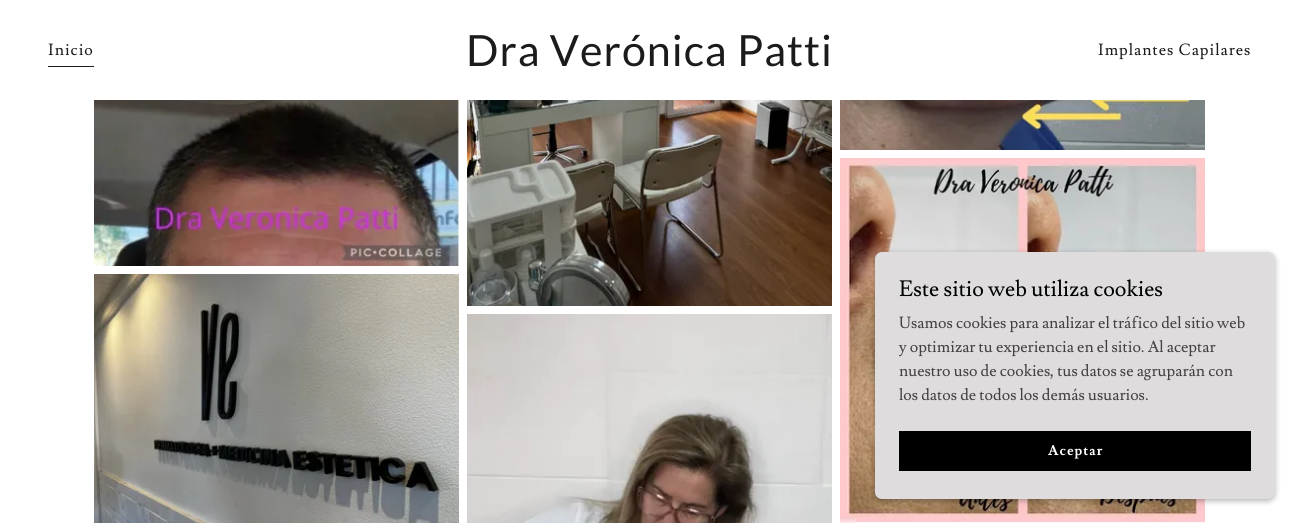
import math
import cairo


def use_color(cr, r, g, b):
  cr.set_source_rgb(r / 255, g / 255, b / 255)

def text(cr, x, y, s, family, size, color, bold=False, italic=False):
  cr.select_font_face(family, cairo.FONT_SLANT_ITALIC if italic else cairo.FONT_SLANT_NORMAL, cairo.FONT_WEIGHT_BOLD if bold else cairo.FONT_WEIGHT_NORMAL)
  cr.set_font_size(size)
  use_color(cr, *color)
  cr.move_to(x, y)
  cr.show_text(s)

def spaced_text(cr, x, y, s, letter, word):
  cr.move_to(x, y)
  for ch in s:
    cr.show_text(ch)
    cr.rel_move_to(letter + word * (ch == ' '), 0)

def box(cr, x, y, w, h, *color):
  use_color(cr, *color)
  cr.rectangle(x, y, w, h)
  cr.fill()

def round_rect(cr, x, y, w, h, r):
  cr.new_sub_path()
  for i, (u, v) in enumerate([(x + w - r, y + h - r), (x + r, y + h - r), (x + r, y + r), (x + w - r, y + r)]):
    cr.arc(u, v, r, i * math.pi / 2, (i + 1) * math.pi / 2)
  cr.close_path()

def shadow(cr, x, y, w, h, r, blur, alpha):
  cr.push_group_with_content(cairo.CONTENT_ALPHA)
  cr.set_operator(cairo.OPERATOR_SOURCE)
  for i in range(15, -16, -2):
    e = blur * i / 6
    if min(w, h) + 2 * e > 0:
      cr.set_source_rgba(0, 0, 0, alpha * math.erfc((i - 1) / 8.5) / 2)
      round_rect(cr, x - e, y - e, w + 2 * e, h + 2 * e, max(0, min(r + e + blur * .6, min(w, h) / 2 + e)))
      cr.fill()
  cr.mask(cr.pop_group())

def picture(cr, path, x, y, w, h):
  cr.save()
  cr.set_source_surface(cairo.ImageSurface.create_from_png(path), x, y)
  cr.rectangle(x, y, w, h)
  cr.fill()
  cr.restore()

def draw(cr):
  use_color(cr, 255, 255, 255)
  cr.paint()
  box(cr, 48, 66, 46, 1, 27, 27, 27)
  picture(cr, "img_01.png", 94, 100, 365, 166)
  picture(cr, "img_02.png", 467, 100, 365, 206)
  picture(cr, "img_03.png", 840, 100, 365, 50)
  picture(cr, "img_04.png", 94, 274, 365, 249)
  picture(cr, "img_05.png", 467, 314, 365, 209)
  picture(cr, "img_06.png", 840, 158, 365, 365)
  use_color(cr, 0, 0, 0)
  shadow(cr, 875, 254, 400, 247, 7, 3, 0.3)
  use_color(cr, 222, 220, 220)
  round_rect(cr, 875, 252, 400, 247, 7)
  cr.fill()
  box(cr, 899, 431, 352, 40, 0, 0, 0)
  cr.select_font_face("Lusitana")
  cr.set_font_size(16)
  use_color(cr, 27, 27, 27)
  spaced_text(cr, 48, 55, "Inicio", 1, 0)
  cr.select_font_face("Lato")
  cr.set_font_size(43)
  spaced_text(cr, 466, 66, "Dra Verónica Patti", 1, 0)
  cr.select_font_face("Lusitana")
  cr.set_font_size(16)
  spaced_text(cr, 1098, 55, "Implantes Capilares", 1, 0)
  text(cr, 899, 296, "Este sitio web utiliza cookies", "Lusitana", 22, (0, 0, 0))
  text(cr, 899, 328, "Usamos cookies para analizar el tráfico del sitio web", "Lusitana", 16, (68, 65, 65))
  text(cr, 899, 352, "y optimizar tu experiencia en el sitio. Al aceptar", "Lusitana", 16, (68, 65, 65))
  text(cr, 899, 376, "nuestro uso de cookies, tus datos se agruparán con", "Lusitana", 16, (68, 65, 65))
  text(cr, 899, 400, "los datos de todos los demás usuarios.", "Lusitana", 16, (68, 65, 65))
  cr.select_font_face("Lusitana", cairo.FONT_SLANT_NORMAL, cairo.FONT_WEIGHT_BOLD)
  cr.set_font_size(14)
  use_color(cr, 255, 255, 255)
  spaced_text(cr, 1048, 455, "Aceptar", 1, 0)


surface = cairo.ImageSurface(cairo.FORMAT_RGB24, 1299, 523)
cr = cairo.Context(surface)
options = cairo.FontOptions()
options.set_hint_metrics(cairo.HINT_METRICS_OFF)
options.set_hint_style(cairo.HINT_STYLE_NONE)
cr.set_font_options(options)
cr.set_miter_limit(4)
draw(cr)
surface.write_to_png("out.png")
